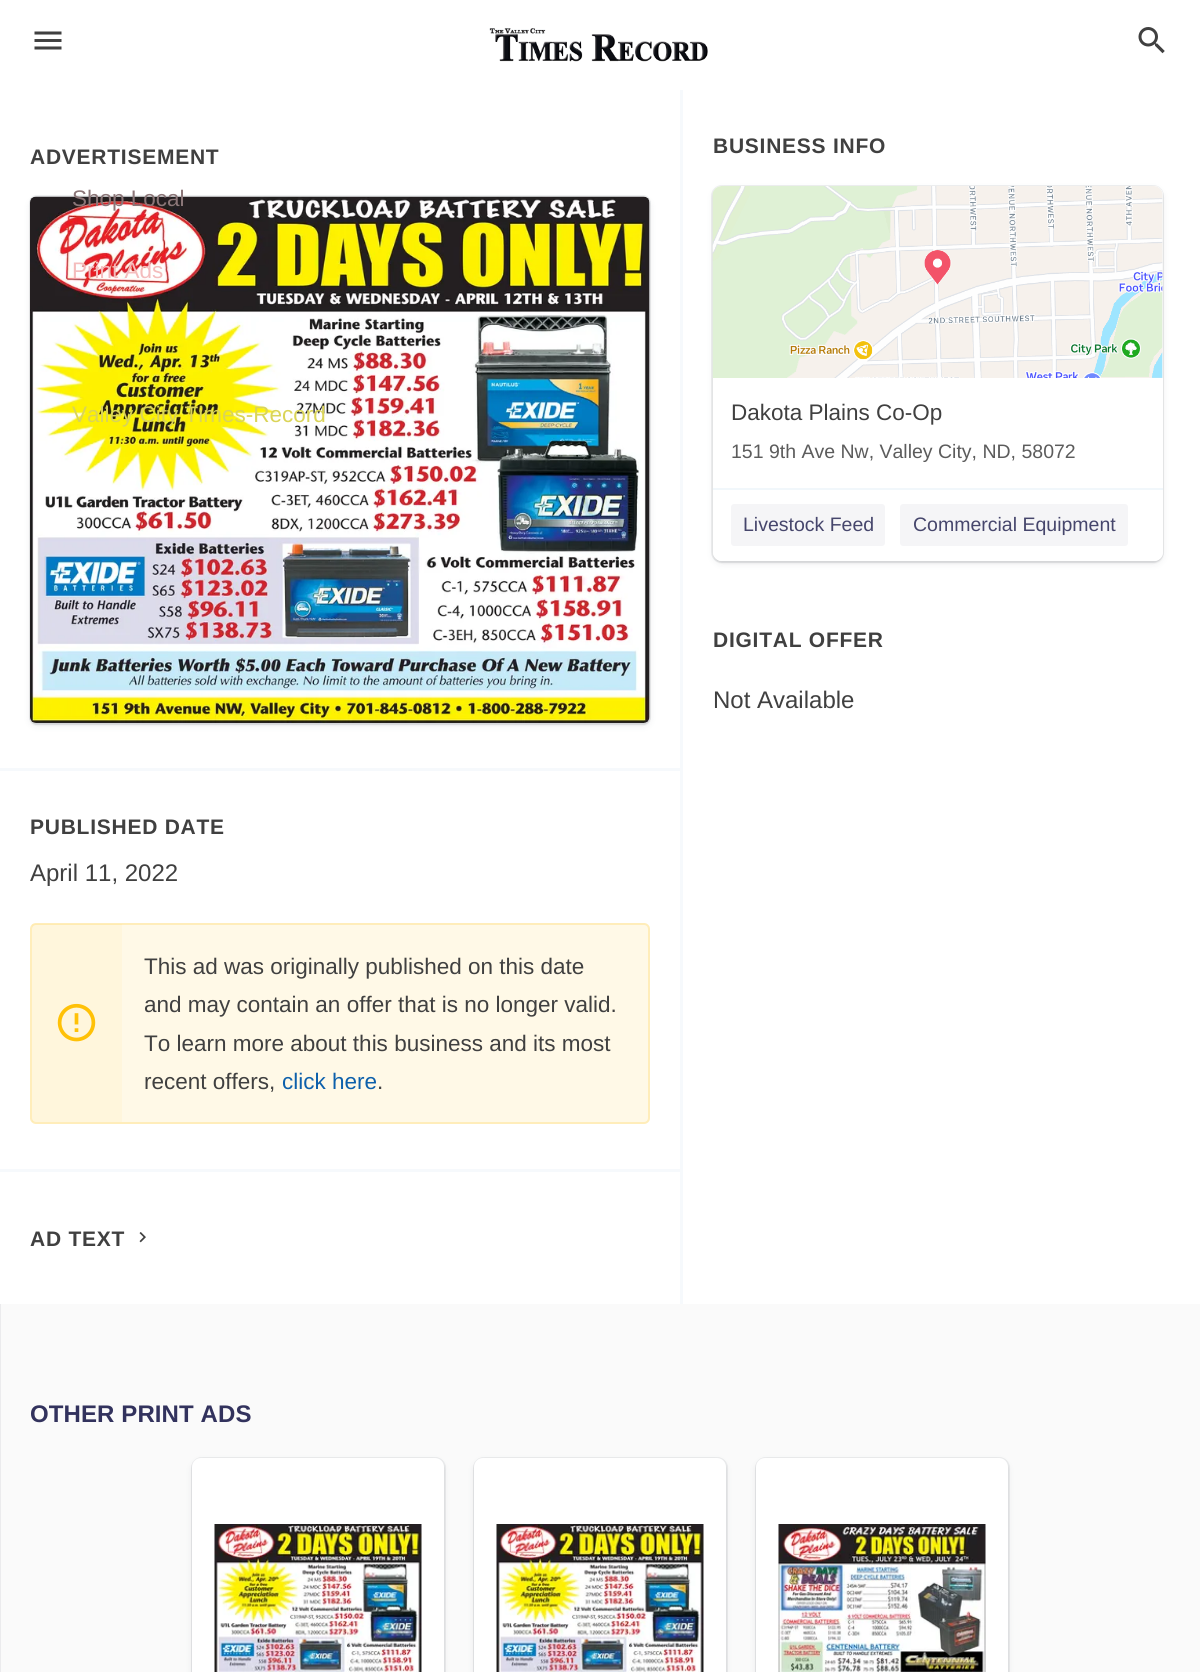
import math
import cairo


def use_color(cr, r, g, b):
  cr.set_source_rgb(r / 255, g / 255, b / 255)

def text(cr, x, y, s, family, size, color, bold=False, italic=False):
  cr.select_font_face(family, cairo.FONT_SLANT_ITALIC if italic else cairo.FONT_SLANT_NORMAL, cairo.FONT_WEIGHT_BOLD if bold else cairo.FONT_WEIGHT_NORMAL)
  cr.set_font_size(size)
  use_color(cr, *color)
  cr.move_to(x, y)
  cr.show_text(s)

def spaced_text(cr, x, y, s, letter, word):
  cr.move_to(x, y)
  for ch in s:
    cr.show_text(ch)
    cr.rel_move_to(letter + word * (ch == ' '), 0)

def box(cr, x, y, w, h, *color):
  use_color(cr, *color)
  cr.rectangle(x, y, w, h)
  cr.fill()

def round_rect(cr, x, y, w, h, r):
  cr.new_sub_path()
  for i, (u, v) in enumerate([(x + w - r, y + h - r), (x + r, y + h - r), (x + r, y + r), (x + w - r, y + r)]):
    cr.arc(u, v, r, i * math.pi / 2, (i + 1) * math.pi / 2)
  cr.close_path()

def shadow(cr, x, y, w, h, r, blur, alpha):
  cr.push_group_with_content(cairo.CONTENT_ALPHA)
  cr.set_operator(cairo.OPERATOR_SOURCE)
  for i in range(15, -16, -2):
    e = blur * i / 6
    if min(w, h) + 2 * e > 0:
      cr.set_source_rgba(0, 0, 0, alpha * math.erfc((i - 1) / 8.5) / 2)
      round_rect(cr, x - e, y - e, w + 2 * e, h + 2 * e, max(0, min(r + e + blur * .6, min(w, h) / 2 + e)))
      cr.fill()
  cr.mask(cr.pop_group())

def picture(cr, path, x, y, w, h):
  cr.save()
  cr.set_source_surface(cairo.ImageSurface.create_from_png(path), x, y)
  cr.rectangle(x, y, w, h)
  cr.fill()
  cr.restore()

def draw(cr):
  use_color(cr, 250, 250, 250)
  cr.paint()
  cr.rectangle(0, 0, 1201, 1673)
  use_color(cr, 235, 235, 237)
  cr.stroke()
  box(cr, 0, 0, 1200, 1304, 255, 255, 255)
  box(cr, 680, 90, 3, 1214, 246, 249, 252)
  box(cr, 0, 768, 680, 3, 246, 249, 252)
  use_color(cr, 60, 66, 87)
  shadow(cr, 30, 200, 620, 526, 6, 4, 0.08)
  round_rect(cr, 30, 196, 620, 528, 7)
  cr.set_source_rgba(0.235, 0.259, 0.341, 0.08)
  cr.stroke()
  use_color(cr, 0, 0, 0)
  shadow(cr, 30, 198, 620, 527, 6, 1, 0.08)
  picture(cr, "img_01.png", 30, 196, 620, 527)
  box(cr, 0, 1169, 680, 3, 246, 249, 252)
  use_color(cr, 255, 249, 231)
  round_rect(cr, 30, 923, 620, 201, 6)
  cr.fill()
  round_rect(cr, 31, 924, 618, 199, 5)
  cr.set_source_rgba(1, 0.757, 0.027, 0.2)
  cr.stroke()
  picture(cr, "img_02.png", 57, 1003, 39, 39)
  cr.set_source_rgba(1, 0.757, 0.027, 0.05)
  cr.rectangle(32, 924, 90, 198)
  cr.fill()
  picture(cr, "img_03.png", 139, 1232, 7, 11)
  use_color(cr, 60, 66, 87)
  shadow(cr, 713, 189, 450, 375, 9, 4, 0.08)
  round_rect(cr, 712, 186, 451, 376, 10)
  cr.set_source_rgba(0.235, 0.259, 0.341, 0.08)
  cr.stroke()
  use_color(cr, 0, 0, 0)
  shadow(cr, 713, 188, 450, 375, 9, 1, 0.08)
  use_color(cr, 255, 255, 255)
  round_rect(cr, 713, 186, 450, 375, 9)
  cr.fill()
  use_color(cr, 245, 245, 245)
  cr.new_path()
  cr.move_to(722, 186)
  cr.line_to(1154, 186)
  cr.curve_to(1159, 186, 1163, 190, 1163, 195)
  cr.line_to(1163, 378)
  cr.line_to(713, 378)
  cr.line_to(713, 195)
  cr.curve_to(713, 190, 717, 186, 722, 186)
  cr.close_path()
  cr.fill()
  picture(cr, "img_04.png", 712, 186, 451, 192)
  use_color(cr, 255, 255, 255)
  cr.new_path()
  cr.move_to(713, 488)
  cr.line_to(1163, 488)
  cr.line_to(1163, 552)
  cr.curve_to(1163, 557, 1159, 561, 1154, 561)
  cr.line_to(722, 561)
  cr.curve_to(717, 561, 713, 557, 713, 552)
  cr.close_path()
  cr.fill()
  box(cr, 713, 488, 450, 2, 241, 247, 251)
  use_color(cr, 245, 245, 247)
  round_rect(cr, 731, 504, 154, 42, 3)
  cr.fill()
  round_rect(cr, 900, 504, 228, 42, 3)
  cr.fill()
  use_color(cr, 60, 66, 87)
  shadow(cr, 192, 1461, 252, 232, 9, 4, 0.08)
  round_rect(cr, 192, 1458, 253, 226, 10)
  cr.set_source_rgba(0.235, 0.259, 0.341, 0.08)
  cr.stroke()
  use_color(cr, 0, 0, 0)
  shadow(cr, 192, 1460, 252, 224, 9, 1, 0.08)
  use_color(cr, 255, 255, 255)
  round_rect(cr, 192, 1458, 252, 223, 9)
  cr.fill()
  picture(cr, "img_05.png", 214, 1524, 208, 148)
  use_color(cr, 60, 66, 87)
  shadow(cr, 474, 1461, 252, 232, 9, 4, 0.08)
  round_rect(cr, 474, 1458, 253, 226, 10)
  cr.set_source_rgba(0.235, 0.259, 0.341, 0.08)
  cr.stroke()
  use_color(cr, 0, 0, 0)
  shadow(cr, 474, 1460, 252, 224, 9, 1, 0.08)
  use_color(cr, 255, 255, 255)
  round_rect(cr, 474, 1458, 252, 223, 9)
  cr.fill()
  picture(cr, "img_05.png", 496, 1524, 208, 148)
  use_color(cr, 60, 66, 87)
  shadow(cr, 756, 1461, 252, 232, 9, 4, 0.08)
  round_rect(cr, 756, 1458, 253, 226, 10)
  cr.set_source_rgba(0.235, 0.259, 0.341, 0.08)
  cr.stroke()
  use_color(cr, 0, 0, 0)
  shadow(cr, 756, 1460, 252, 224, 9, 1, 0.08)
  use_color(cr, 255, 255, 255)
  round_rect(cr, 756, 1458, 252, 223, 9)
  cr.fill()
  picture(cr, "img_06.png", 778, 1524, 208, 148)
  picture(cr, "img_07.png", 34, 31, 28, 19)
  picture(cr, "img_08.png", 489, 28, 219, 34)
  picture(cr, "img_09.png", 1138, 27, 27, 27)
  cr.select_font_face("Liberation Sans", cairo.FONT_SLANT_NORMAL, cairo.FONT_WEIGHT_BOLD)
  cr.set_font_size(21)
  use_color(cr, 64, 64, 64)
  spaced_text(cr, 30, 164, "ADVERTISEMENT", 0.75, 0)
  spaced_text(cr, 30, 834, "PUBLISHED DATE", 0.75, 0)
  text(cr, 30, 881, "April 11, 2022", "Liberation Sans", 24, (64, 64, 64))
  text(cr, 144, 974, "This ad was originally published on this date", "Liberation Sans", 22.5, (64, 64, 64))
  text(cr, 144, 1012, "and may contain an offer that is no longer valid.", "Liberation Sans", 22.5, (64, 64, 64))
  text(cr, 144, 1051, "To learn more about this business and its most", "Liberation Sans", 22.5, (64, 64, 64))
  text(cr, 144, 1089, "recent offers,", "Liberation Sans", 22.5, (64, 64, 64))
  text(cr, 282, 1089, "click here", "Liberation Sans", 22.5, (13, 96, 171))
  text(cr, 377, 1089, ".", "Liberation Sans", 22.5, (64, 64, 64))
  cr.select_font_face("Liberation Sans", cairo.FONT_SLANT_NORMAL, cairo.FONT_WEIGHT_BOLD)
  cr.set_font_size(21)
  spaced_text(cr, 30, 1246, "AD TEXT", 0.75, 0)
  spaced_text(cr, 713, 153, "BUSINESS INFO", 0.75, 0)
  text(cr, 731, 420, "Dakota Plains Co-Op", "Liberation Sans", 22.5, (64, 64, 64))
  text(cr, 731, 458, "151 9th Ave Nw, Valley City, ND, 58072", "Liberation Sans", 19.5, (92, 92, 92))
  text(cr, 743, 531, "Livestock Feed", "Liberation Sans", 19.5, (70, 70, 108))
  text(cr, 913, 531, "Commercial Equipment", "Liberation Sans", 19.5, (70, 70, 108))
  cr.select_font_face("Liberation Sans", cairo.FONT_SLANT_NORMAL, cairo.FONT_WEIGHT_BOLD)
  cr.set_font_size(21)
  use_color(cr, 64, 64, 64)
  spaced_text(cr, 713, 647, "DIGITAL OFFER", 0.75, 0)
  text(cr, 713, 708, "Not Available", "Liberation Sans", 24, (64, 64, 64))
  cr.select_font_face("Liberation Sans", cairo.FONT_SLANT_NORMAL, cairo.FONT_WEIGHT_BOLD)
  use_color(cr, 50, 50, 93)
  spaced_text(cr, 30, 1422, "OTHER PRINT ADS", 0.1, 0)
  text(cr, 72, 206, "Shop Local", "Liberation Sans", 22.5, (139, 118, 120))
  text(cr, 72, 278, "Print Ads", "Liberation Sans", 22.5, (244, 188, 188))
  text(cr, 72, 422, "Valley City Times-Record", "Liberation Sans", 22.5, (218, 212, 88))


surface = cairo.ImageSurface(cairo.FORMAT_RGB24, 1200, 1672)
cr = cairo.Context(surface)
options = cairo.FontOptions()
options.set_hint_metrics(cairo.HINT_METRICS_OFF)
options.set_hint_style(cairo.HINT_STYLE_NONE)
cr.set_font_options(options)
cr.set_miter_limit(4)
draw(cr)
surface.write_to_png("out.png")
